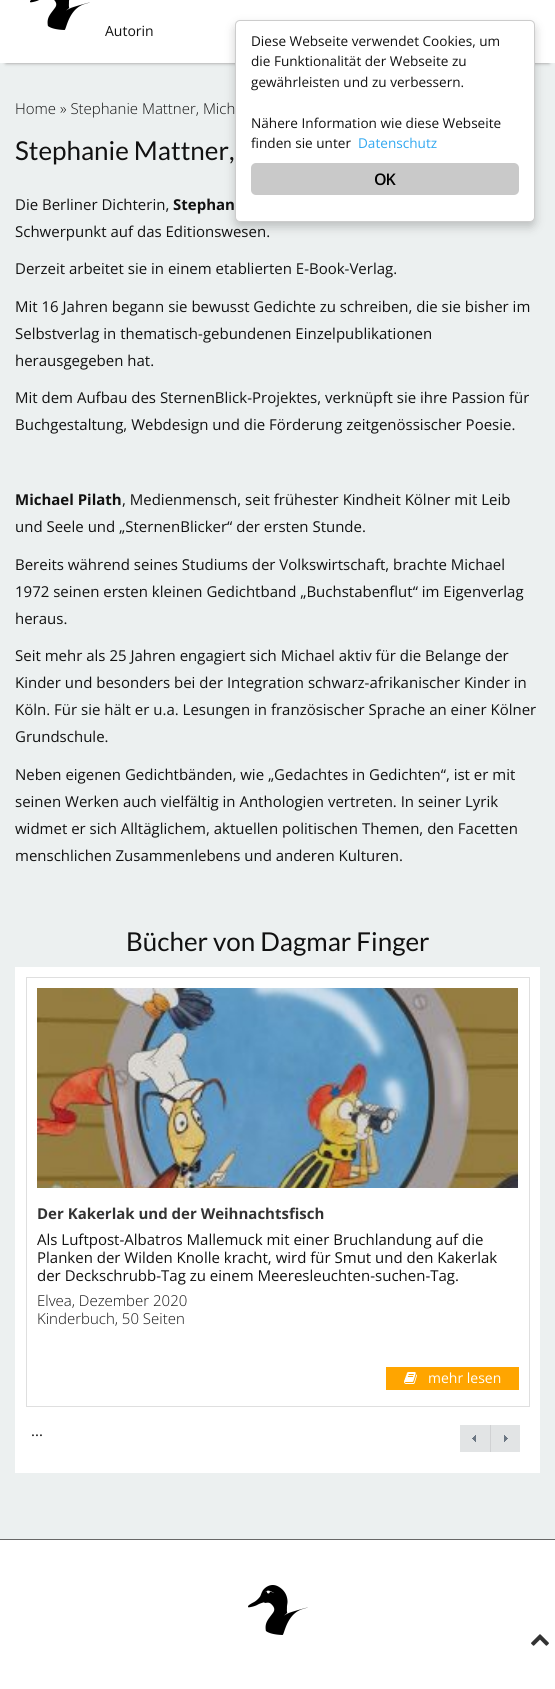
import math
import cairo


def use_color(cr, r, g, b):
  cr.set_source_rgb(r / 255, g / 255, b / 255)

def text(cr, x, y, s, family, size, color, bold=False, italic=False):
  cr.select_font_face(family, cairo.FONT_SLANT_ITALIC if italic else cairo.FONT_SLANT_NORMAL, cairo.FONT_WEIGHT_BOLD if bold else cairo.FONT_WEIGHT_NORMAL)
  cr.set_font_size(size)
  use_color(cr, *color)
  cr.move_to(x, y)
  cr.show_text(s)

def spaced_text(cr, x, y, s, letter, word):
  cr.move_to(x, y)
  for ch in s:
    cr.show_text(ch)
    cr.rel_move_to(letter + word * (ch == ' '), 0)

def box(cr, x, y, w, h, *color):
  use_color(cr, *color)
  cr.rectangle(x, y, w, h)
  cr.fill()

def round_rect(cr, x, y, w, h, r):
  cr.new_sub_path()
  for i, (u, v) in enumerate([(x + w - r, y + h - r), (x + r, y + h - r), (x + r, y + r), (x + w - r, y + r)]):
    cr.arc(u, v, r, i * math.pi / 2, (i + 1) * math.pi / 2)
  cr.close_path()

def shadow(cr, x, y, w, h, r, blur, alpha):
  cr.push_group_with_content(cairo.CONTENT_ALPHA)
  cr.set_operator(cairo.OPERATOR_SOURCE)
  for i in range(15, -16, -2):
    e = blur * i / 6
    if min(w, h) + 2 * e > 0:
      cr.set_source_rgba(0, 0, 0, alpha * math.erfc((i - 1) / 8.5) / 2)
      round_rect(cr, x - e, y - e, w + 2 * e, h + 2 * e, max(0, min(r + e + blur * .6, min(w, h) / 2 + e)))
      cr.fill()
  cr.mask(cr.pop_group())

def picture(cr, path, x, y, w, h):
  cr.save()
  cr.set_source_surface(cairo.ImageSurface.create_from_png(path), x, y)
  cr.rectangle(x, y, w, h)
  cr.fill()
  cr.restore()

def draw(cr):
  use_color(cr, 236, 240, 240)
  cr.paint()
  use_color(cr, 144, 143, 143)
  shadow(cr, 6, -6, 543, 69, 0, 2, 1)
  box(cr, 0, 0, 555, 63, 255, 255, 255)
  picture(cr, "img_01.png", 30, 0, 60, 30)
  use_color(cr, 0, 0, 0)
  shadow(cr, 235, 25, 300, 202, 5, 5, 0.2)
  use_color(cr, 255, 255, 255)
  round_rect(cr, 235.5, 20.5, 299, 201, 4.5)
  cr.fill_preserve()
  use_color(cr, 204, 204, 204)
  cr.set_line_width(1)
  cr.stroke()
  use_color(cr, 201, 201, 201)
  round_rect(cr, 251, 163, 268, 32, 5)
  cr.fill()
  box(cr, 15, 967, 525, 506, 255, 255, 255)
  cr.rectangle(26.5, 977.5, 503, 429)
  use_color(cr, 223, 223, 223)
  cr.stroke()
  picture(cr, "img_02.png", 37, 988, 481, 200)
  box(cr, 386, 1367, 133, 23, 255, 165, 0)
  picture(cr, "img_03.png", 404, 1372, 13, 12)
  picture(cr, "img_04.png", 460, 1425, 30, 27)
  picture(cr, "img_05.png", 490, 1425, 30, 27)
  box(cr, 0, 1540, 555, 149, 255, 255, 255)
  box(cr, 0, 1539, 555, 1, 103, 103, 103)
  picture(cr, "img_06.png", 248, 1585, 60, 50)
  picture(cr, "img_07.png", 531, 1634, 18, 12)
  text(cr, 105, 36, "Autorin", "Open Sans", 14, (17, 17, 17))
  text(cr, 15, 114, "Home » Stephanie Mattner, Mich", "Open Sans Light", 15, (17, 17, 17))
  text(cr, 251, 46, "Diese Webseite verwendet Cookies, um", "Open Sans", 13.6, (17, 17, 17))
  text(cr, 251, 66, "die Funktionalität der Webseite zu", "Open Sans", 13.6, (17, 17, 17))
  text(cr, 251, 87, "gewährleisten und zu verbessern.", "Open Sans", 13.6, (17, 17, 17))
  text(cr, 251, 128, "Nähere Information wie diese Webseite", "Open Sans", 13.6, (17, 17, 17))
  text(cr, 251, 148, "finden sie unter", "Open Sans", 13.6, (17, 17, 17))
  text(cr, 358, 148, "Datenschutz", "Open Sans", 13.6, (49, 168, 240))
  cr.select_font_face("Open Sans SemiBold")
  cr.set_font_size(16)
  use_color(cr, 0, 0, 0)
  spaced_text(cr, 374, 185, "OK", -1, 0)
  text(cr, 15, 160, "Stephanie Mattner,", "Lato", 26, (17, 17, 17))
  text(cr, 15, 210, "Die Berliner Dichterin,", "Open Sans", 15, (17, 17, 17))
  text(cr, 173, 210, "Stephan", "Open Sans", 15, (17, 17, 17), bold=True)
  text(cr, 15, 237, "Schwerpunkt auf das Editionswesen.", "Open Sans", 15, (17, 17, 17))
  text(cr, 15, 274, "Derzeit arbeitet sie in einem etablierten E-Book-Verlag.", "Open Sans", 15, (17, 17, 17))
  text(cr, 15, 312, "Mit 16 Jahren begann sie bewusst Gedichte zu schreiben, die sie bisher im", "Open Sans", 15, (17, 17, 17))
  text(cr, 15, 339, "Selbstverlag in thematisch-gebundenen Einzelpublikationen", "Open Sans", 15, (17, 17, 17))
  text(cr, 15, 366, "herausgegeben hat.", "Open Sans", 15, (17, 17, 17))
  text(cr, 15, 403, "Mit dem Aufbau des SternenBlick-Projektes, verknüpft sie ihre Passion für", "Open Sans", 15, (17, 17, 17))
  text(cr, 15, 430, "Buchgestaltung, Webdesign und die Förderung zeitgenössischer Poesie.", "Open Sans", 15, (17, 17, 17))
  text(cr, 15, 505, "Michael Pilath", "Open Sans", 15, (17, 17, 17), bold=True)
  text(cr, 122, 505, ", Medienmensch, seit frühester Kindheit Kölner mit Leib", "Open Sans", 15, (17, 17, 17))
  text(cr, 15, 532, "und Seele und „SternenBlicker“ der ersten Stunde.", "Open Sans", 15, (17, 17, 17))
  text(cr, 15, 570, "Bereits während seines Studiums der Volkswirtschaft, brachte Michael", "Open Sans", 15, (17, 17, 17))
  text(cr, 15, 597, "1972 seinen ersten kleinen Gedichtband „Buchstabenflut“ im Eigenverlag", "Open Sans", 15, (17, 17, 17))
  text(cr, 15, 624, "heraus.", "Open Sans", 15, (17, 17, 17))
  text(cr, 15, 661, "Seit mehr als 25 Jahren engagiert sich Michael aktiv für die Belange der", "Open Sans", 15, (17, 17, 17))
  text(cr, 15, 688, "Kinder und besonders bei der Integration schwarz-afrikanischer Kinder in", "Open Sans", 15, (17, 17, 17))
  text(cr, 15, 715, "Köln. Für sie hält er u.a. Lesungen in französischer Sprache an einer Kölner", "Open Sans", 15, (17, 17, 17))
  text(cr, 15, 742, "Grundschule.", "Open Sans", 15, (17, 17, 17))
  text(cr, 15, 780, "Neben eigenen Gedichtbänden, wie „Gedachtes in Gedichten“, ist er mit", "Open Sans", 15, (17, 17, 17))
  text(cr, 15, 807, "seinen Werken auch vielfältig in Anthologien vertreten. In seiner Lyrik", "Open Sans", 15, (17, 17, 17))
  text(cr, 15, 834, "widmet er sich Alltäglichem, aktuellen politischen Themen, den Facetten", "Open Sans", 15, (17, 17, 17))
  text(cr, 15, 861, "menschlichen Zusammenlebens und anderen Kulturen.", "Open Sans", 15, (17, 17, 17))
  text(cr, 126, 951, "Bücher von Dagmar Finger", "Lato", 26, (17, 17, 17))
  text(cr, 37, 1219, "Der Kakerlak und der Weihnachtsfisch", "Open Sans", 15, (51, 51, 51), bold=True)
  text(cr, 37, 1245, "Als Luftpost-Albatros Mallemuck mit einer Bruchlandung auf die", "Open Sans", 15, (17, 17, 17))
  text(cr, 37, 1263, "Planken der Wilden Knolle kracht, wird für Smut und den Kakerlak", "Open Sans", 15, (17, 17, 17))
  text(cr, 37, 1281, "der Deckschrubb-Tag zu einem Meeresleuchten-suchen-Tag.", "Open Sans", 15, (17, 17, 17))
  text(cr, 37, 1306, "Elvea, Dezember 2020", "Open Sans Light", 15, (17, 17, 17))
  text(cr, 37, 1324, "Kinderbuch, 50 Seiten", "Open Sans Light", 15, (17, 17, 17))
  text(cr, 428, 1383, "mehr lesen", "Open Sans", 14, (255, 255, 255))
  text(cr, 31, 1436, "...", "Open Sans", 15, (17, 17, 17))


surface = cairo.ImageSurface(cairo.FORMAT_RGB24, 555, 1689)
cr = cairo.Context(surface)
options = cairo.FontOptions()
options.set_hint_metrics(cairo.HINT_METRICS_OFF)
options.set_hint_style(cairo.HINT_STYLE_NONE)
cr.set_font_options(options)
cr.set_miter_limit(4)
draw(cr)
surface.write_to_png("out.png")
